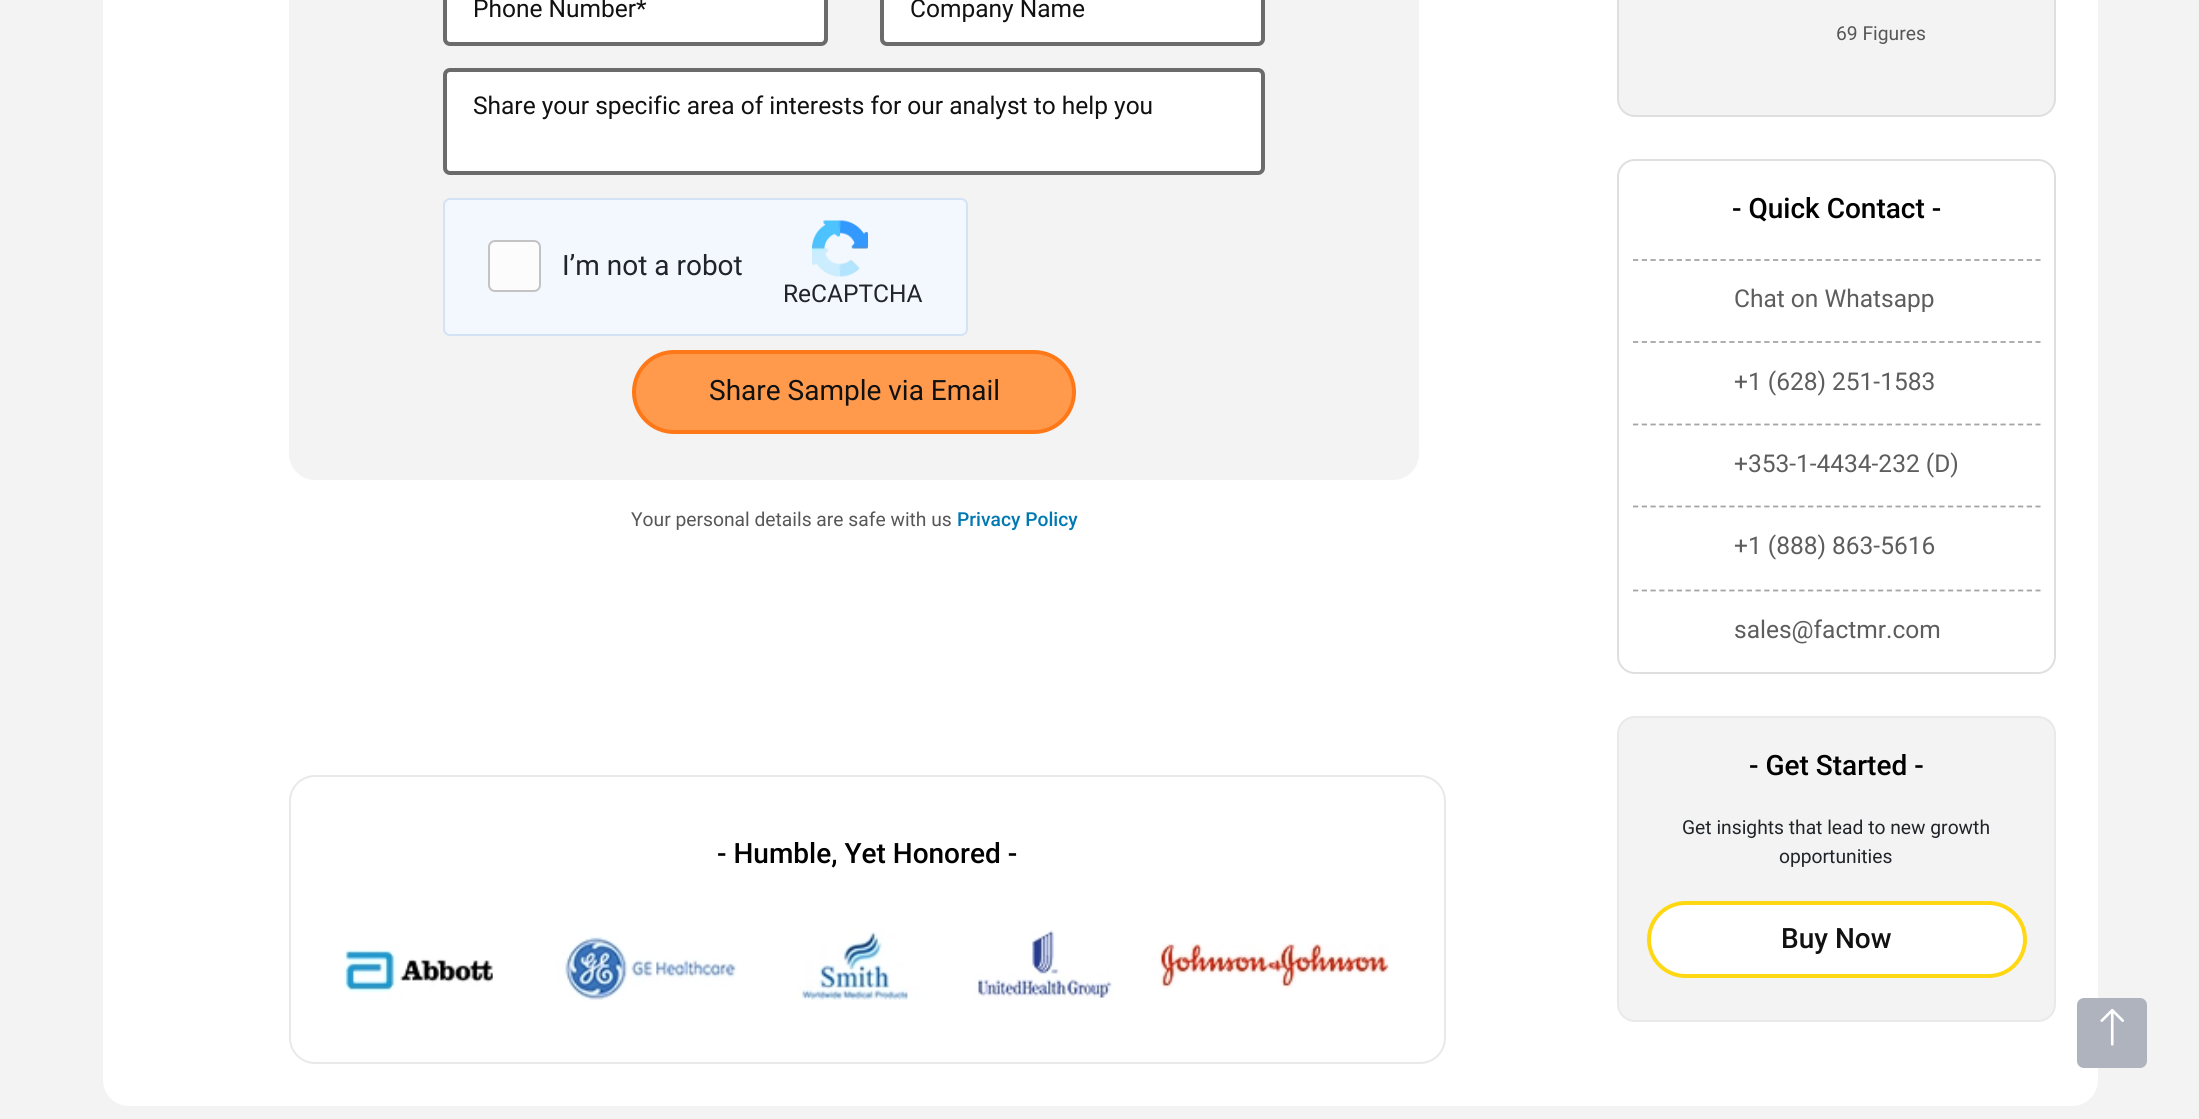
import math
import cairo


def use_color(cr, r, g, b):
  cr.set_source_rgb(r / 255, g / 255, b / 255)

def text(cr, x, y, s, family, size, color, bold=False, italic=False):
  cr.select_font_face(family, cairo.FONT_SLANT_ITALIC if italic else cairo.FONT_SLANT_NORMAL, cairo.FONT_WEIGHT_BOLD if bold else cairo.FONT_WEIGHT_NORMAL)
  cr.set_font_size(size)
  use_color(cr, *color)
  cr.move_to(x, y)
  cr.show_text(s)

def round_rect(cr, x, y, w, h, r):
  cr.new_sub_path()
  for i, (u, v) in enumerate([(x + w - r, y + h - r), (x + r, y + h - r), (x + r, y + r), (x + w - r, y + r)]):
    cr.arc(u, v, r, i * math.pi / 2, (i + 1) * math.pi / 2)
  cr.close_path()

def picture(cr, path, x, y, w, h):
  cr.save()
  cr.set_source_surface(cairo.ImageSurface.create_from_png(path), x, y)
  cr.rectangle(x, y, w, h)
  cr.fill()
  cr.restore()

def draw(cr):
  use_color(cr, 243, 243, 243)
  cr.paint()
  use_color(cr, 255, 255, 255)
  round_rect(cr, 103, -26, 1995, 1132, 26)
  cr.fill()
  use_color(cr, 243, 243, 243)
  round_rect(cr, 289, -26, 1130, 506, 26)
  cr.fill()
  use_color(cr, 255, 255, 255)
  round_rect(cr, 446, -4, 378, 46, 4)
  cr.fill()
  round_rect(cr, 445, -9, 381, 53, 5)
  use_color(cr, 107, 107, 107)
  cr.set_line_width(4)
  cr.stroke()
  use_color(cr, 255, 255, 255)
  round_rect(cr, 884, -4, 378, 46, 4)
  cr.fill()
  round_rect(cr, 882, -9, 381, 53, 5)
  use_color(cr, 107, 107, 107)
  cr.stroke()
  use_color(cr, 255, 255, 255)
  round_rect(cr, 445, 70, 818, 103, 5)
  cr.fill_preserve()
  use_color(cr, 107, 107, 107)
  cr.stroke()
  use_color(cr, 243, 248, 255)
  round_rect(cr, 443, 198, 525, 138, 7)
  cr.fill()
  round_rect(cr, 444, 199, 523, 136, 6)
  cr.set_source_rgba(0.129, 0.396, 0.718, 0.15)
  cr.set_line_width(2)
  cr.stroke()
  use_color(cr, 252, 252, 252)
  round_rect(cr, 489, 241, 51, 50, 6)
  cr.fill_preserve()
  use_color(cr, 195, 195, 195)
  cr.stroke()
  picture(cr, "img_01.png", 812, 220, 56, 57)
  use_color(cr, 255, 154, 77)
  round_rect(cr, 634, 352, 440, 80, 40)
  cr.fill_preserve()
  use_color(cr, 255, 120, 24)
  cr.set_line_width(4)
  cr.stroke()
  use_color(cr, 243, 243, 243)
  round_rect(cr, 1618, -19, 437, 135, 17)
  cr.fill_preserve()
  use_color(cr, 223, 223, 223)
  cr.set_line_width(2)
  cr.stroke()
  round_rect(cr, 1618, 160, 437, 513, 17)
  cr.stroke()
  cr.new_path()
  cr.move_to(1633, 260)
  cr.line_to(2040.5, 260)
  use_color(cr, 165, 165, 165)
  cr.set_line_width(1.8)
  cr.set_dash([5.25, 3.5])
  cr.stroke()
  cr.new_path()
  cr.move_to(1633, 342)
  cr.line_to(2040.5, 342)
  cr.stroke()
  cr.new_path()
  cr.move_to(1633, 424.5)
  cr.line_to(2040.5, 424.5)
  cr.stroke()
  cr.new_path()
  cr.move_to(1633, 506.5)
  cr.line_to(2040.5, 506.5)
  cr.stroke()
  cr.new_path()
  cr.move_to(1633, 590.5)
  cr.line_to(2040.5, 590.5)
  cr.stroke()
  use_color(cr, 243, 243, 243)
  round_rect(cr, 1618, 717, 437, 304, 17)
  cr.fill_preserve()
  use_color(cr, 233, 233, 233)
  cr.set_line_width(2)
  cr.set_dash([])
  cr.stroke()
  use_color(cr, 255, 255, 255)
  round_rect(cr, 1649, 903, 376, 73, 36.5)
  cr.fill_preserve()
  use_color(cr, 255, 215, 19)
  cr.set_line_width(4)
  cr.stroke()
  round_rect(cr, 290, 776, 1155, 287, 25)
  use_color(cr, 233, 233, 233)
  cr.set_line_width(2)
  cr.stroke()
  picture(cr, "img_02.png", 344, 930, 1046, 71)
  use_color(cr, 174, 179, 190)
  round_rect(cr, 2077, 998, 70, 70, 7)
  cr.fill()
  picture(cr, "img_03.png", 2100, 1008, 24, 38)
  text(cr, 473, 17, "Phone Number*", "Roboto", 24.5, (17, 17, 17))
  text(cr, 910, 17, "Company Name", "Roboto", 24.5, (17, 17, 17))
  text(cr, 473, 114, "Share your specific area of interests for our analyst to help you", "Roboto", 24.5, (17, 17, 17))
  text(cr, 562, 275, "I’m not a robot", "Roboto", 28, (33, 37, 41))
  text(cr, 783, 302, "ReCAPTCHA", "Roboto", 24.5, (33, 37, 41))
  text(cr, 709, 400, "Share Sample via Email", "Roboto", 28, (17, 17, 17))
  text(cr, 631, 526, "Your personal details are safe with us", "Roboto", 19.25, (87, 87, 87))
  text(cr, 957, 526, "Privacy Policy", "Roboto Medium", 19.25, (0, 121, 178))
  text(cr, 1836, 40, "69 Figures", "Roboto", 19.25, (87, 87, 87))
  text(cr, 1732, 218, "- Quick Contact -", "Roboto Medium", 28, (0, 0, 0))
  text(cr, 1734, 307, "Chat on Whatsapp", "Roboto", 24.5, (93, 93, 93))
  text(cr, 1734, 390, "+1 (628) 251-1583", "Roboto", 24.5, (93, 93, 93))
  text(cr, 1734, 472, "+353-1-4434-232 (D)", "Roboto", 24.5, (93, 93, 93))
  text(cr, 1734, 554, "+1 (888) 863-5616", "Roboto", 24.5, (93, 93, 93))
  text(cr, 1734, 638, "sales@factmr.com", "Roboto", 24.5, (93, 93, 93))
  text(cr, 1749, 775, "- Get Started -", "Roboto Medium", 28, (0, 0, 0))
  text(cr, 1682, 834, "Get insights that lead to new growth", "Roboto", 19.25, (33, 37, 41))
  text(cr, 1779, 863, "opportunities", "Roboto", 19.25, (33, 37, 41))
  text(cr, 1781, 948, "Buy Now", "Roboto Medium", 28, (17, 17, 17))
  text(cr, 717, 863, "- Humble, Yet Honored -", "Roboto Medium", 28, (0, 0, 0))


surface = cairo.ImageSurface(cairo.FORMAT_RGB24, 2199, 1119)
cr = cairo.Context(surface)
options = cairo.FontOptions()
options.set_hint_metrics(cairo.HINT_METRICS_OFF)
options.set_hint_style(cairo.HINT_STYLE_NONE)
cr.set_font_options(options)
cr.set_miter_limit(4)
draw(cr)
surface.write_to_png("out.png")
